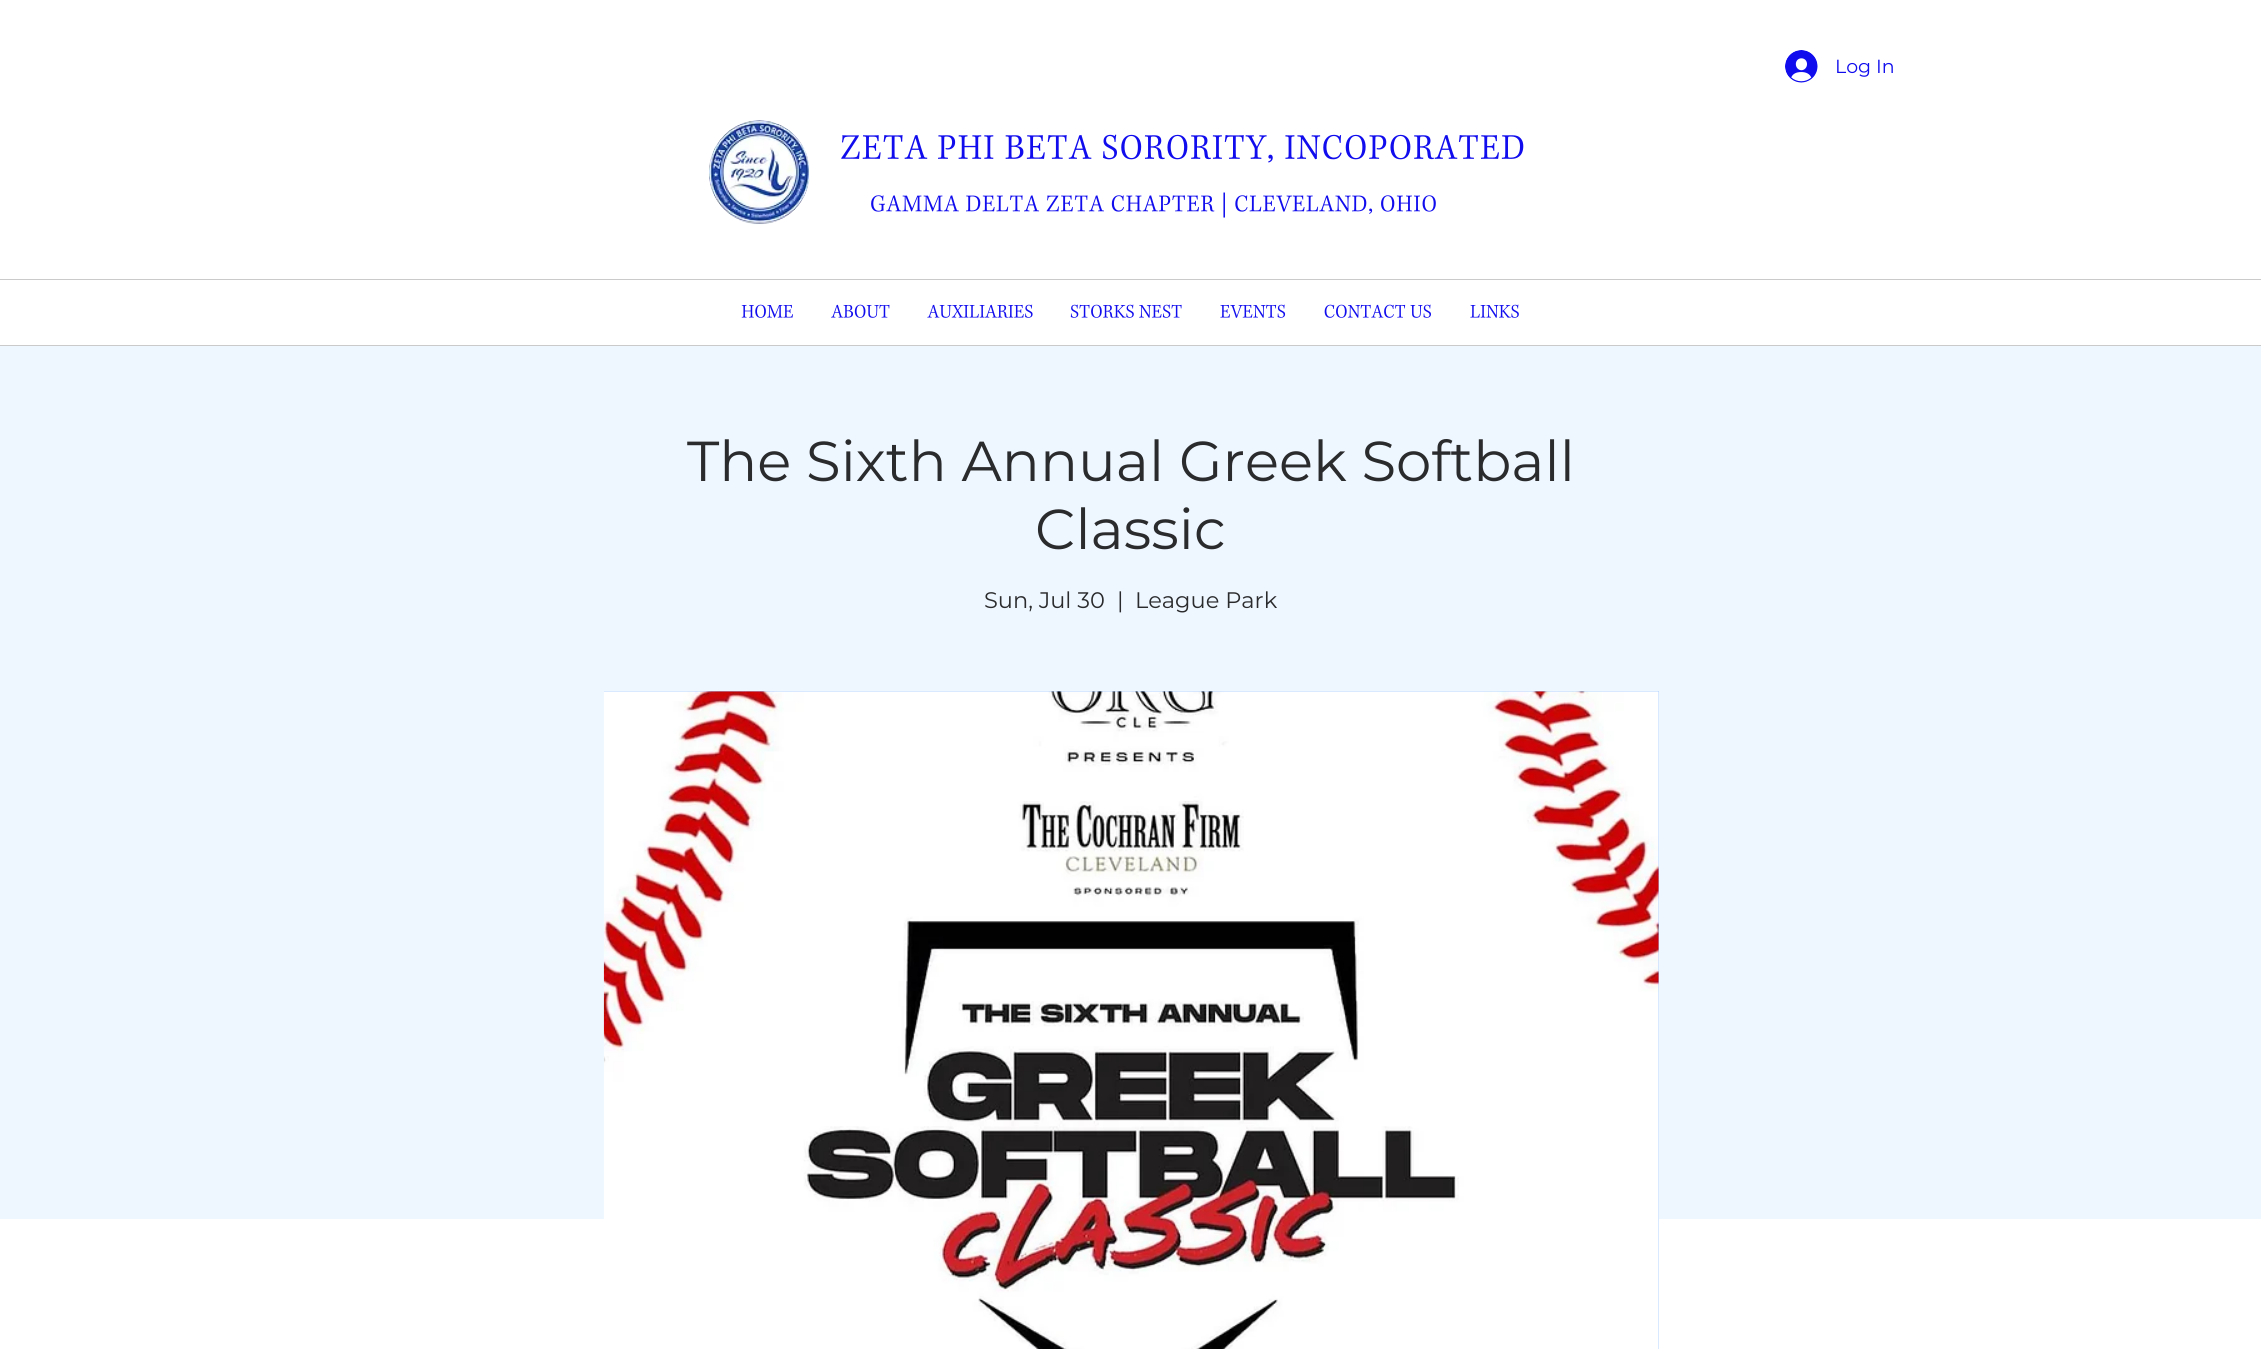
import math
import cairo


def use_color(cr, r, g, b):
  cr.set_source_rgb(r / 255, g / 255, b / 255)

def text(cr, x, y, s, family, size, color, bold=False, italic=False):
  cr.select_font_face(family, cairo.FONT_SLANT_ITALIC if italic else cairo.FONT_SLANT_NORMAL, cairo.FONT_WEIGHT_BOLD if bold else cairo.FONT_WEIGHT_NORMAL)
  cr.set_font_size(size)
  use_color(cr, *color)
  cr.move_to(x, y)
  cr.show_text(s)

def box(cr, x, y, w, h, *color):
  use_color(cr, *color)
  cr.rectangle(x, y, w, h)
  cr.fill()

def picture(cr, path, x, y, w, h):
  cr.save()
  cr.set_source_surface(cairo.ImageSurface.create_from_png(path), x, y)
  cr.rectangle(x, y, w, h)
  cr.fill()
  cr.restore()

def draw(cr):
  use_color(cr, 255, 255, 255)
  cr.paint()
  picture(cr, "img_01.png", 1785, 50, 33, 33)
  picture(cr, "img_02.png", 709, 120, 101, 105)
  picture(cr, "img_03.png", 841, 134, 683, 29)
  picture(cr, "img_04.png", 871, 195, 344, 17)
  picture(cr, "img_05.png", 1223, 192, 213, 26)
  box(cr, 0, 279, 2261, 1, 202, 202, 202)
  box(cr, 0, 345, 2261, 1, 202, 202, 202)
  picture(cr, "img_06.png", 741, 304, 52, 14)
  picture(cr, "img_07.png", 831, 304, 59, 14)
  picture(cr, "img_08.png", 927, 304, 106, 14)
  picture(cr, "img_09.png", 1070, 304, 112, 14)
  picture(cr, "img_10.png", 1220, 304, 66, 14)
  picture(cr, "img_11.png", 1324, 304, 107, 14)
  picture(cr, "img_12.png", 1470, 304, 49, 14)
  box(cr, 0, 346, 2261, 873, 238, 246, 255)
  box(cr, 604, 691, 1055, 658, 168, 205, 255)
  picture(cr, "img_13.png", 603, 691, 1056, 658)
  text(cr, 1835, 73, "Log In", "Montserrat", 19, (16, 12, 237))
  text(cr, 687, 481, "The Sixth Annual Greek Softball", "Montserrat", 56.25, (42, 43, 44))
  text(cr, 1035, 549, "Classic", "Montserrat", 56.25, (42, 43, 44))
  text(cr, 984, 608, "Sun, Jul 30", "Montserrat", 22.5, (42, 43, 44))
  text(cr, 1117, 608, "|", "Montserrat", 22.5, (42, 43, 44))
  text(cr, 1135, 608, "League Park", "Montserrat", 22.5, (42, 43, 44))


surface = cairo.ImageSurface(cairo.FORMAT_RGB24, 2261, 1349)
cr = cairo.Context(surface)
options = cairo.FontOptions()
options.set_hint_metrics(cairo.HINT_METRICS_OFF)
options.set_hint_style(cairo.HINT_STYLE_NONE)
cr.set_font_options(options)
cr.set_miter_limit(4)
draw(cr)
surface.write_to_png("out.png")
